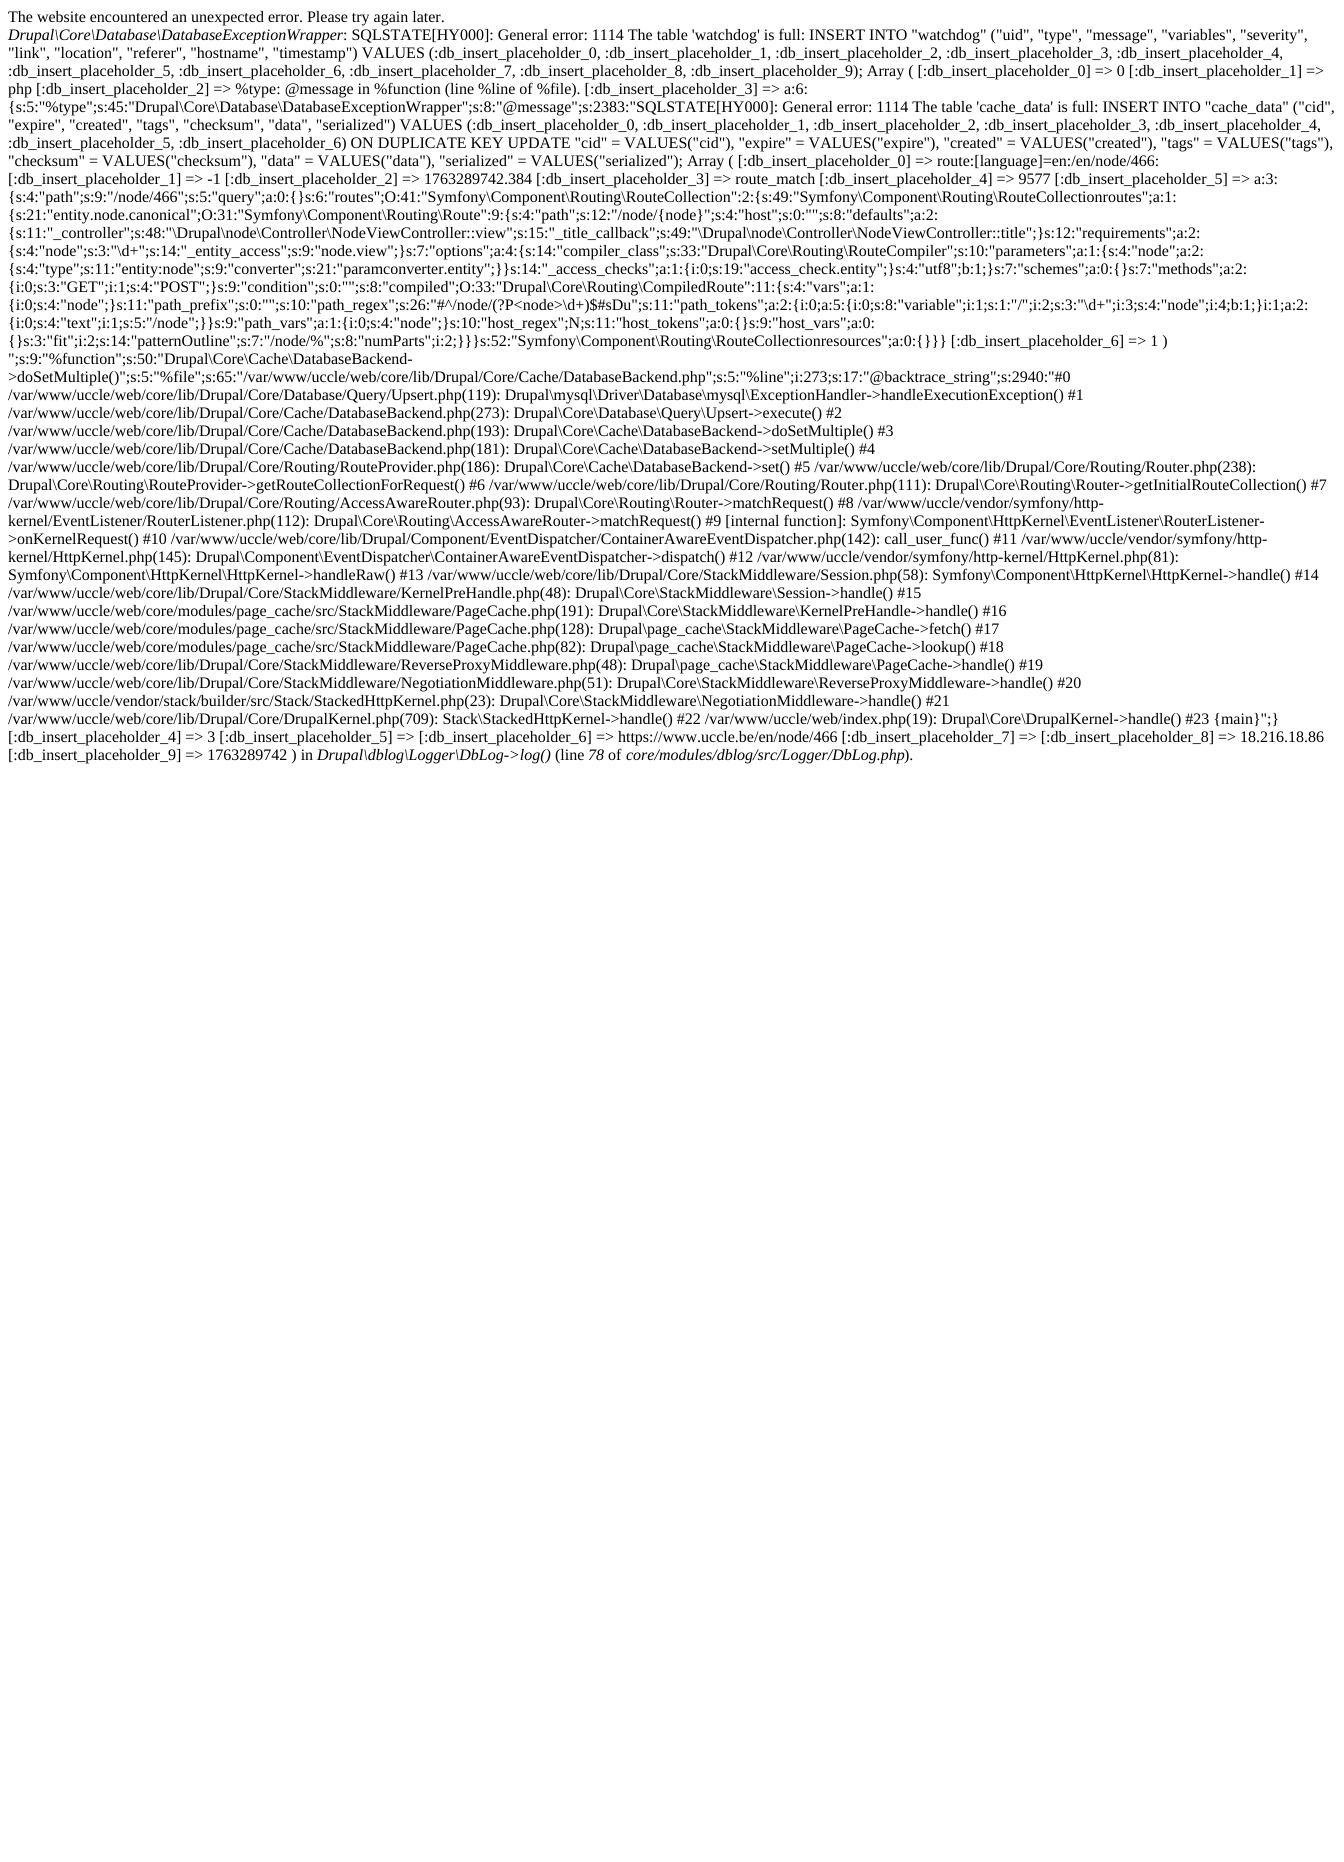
import math
import cairo


def use_color(cr, r, g, b):
  cr.set_source_rgb(r / 255, g / 255, b / 255)

def text(cr, x, y, s, family, size, color, bold=False, italic=False):
  cr.select_font_face(family, cairo.FONT_SLANT_ITALIC if italic else cairo.FONT_SLANT_NORMAL, cairo.FONT_WEIGHT_BOLD if bold else cairo.FONT_WEIGHT_NORMAL)
  cr.set_font_size(size)
  use_color(cr, *color)
  cr.move_to(x, y)
  cr.show_text(s)

def draw(cr):
  use_color(cr, 255, 255, 255)
  cr.paint()
  text(cr, 8, 22, "The website encountered an unexpected error. Please try again later.", "Liberation Serif", 16, (0, 0, 0))
  text(cr, 8, 40, "Drupal\\Core\\Database\\DatabaseExceptionWrapper", "Liberation Serif", 16, (0, 0, 0), italic=True)
  text(cr, 343, 40, ": SQLSTATE[HY000]: General error: 1114 The table 'watchdog' is full: INSERT INTO \"watchdog\" (\"uid\", \"type\", \"message\", \"variables\", \"severity\",", "Liberation Serif", 16, (0, 0, 0))
  text(cr, 8, 58, "\"link\", \"location\", \"referer\", \"hostname\", \"timestamp\") VALUES (:db_insert_placeholder_0, :db_insert_placeholder_1, :db_insert_placeholder_2, :db_insert_placeholder_3, :db_insert_placeholder_4,", "Liberation Serif", 16, (0, 0, 0))
  text(cr, 8, 76, ":db_insert_placeholder_5, :db_insert_placeholder_6, :db_insert_placeholder_7, :db_insert_placeholder_8, :db_insert_placeholder_9); Array ( [:db_insert_placeholder_0] => 0 [:db_insert_placeholder_1] =>", "Liberation Serif", 16, (0, 0, 0))
  text(cr, 8, 94, "php [:db_insert_placeholder_2] => %type: @message in %function (line %line of %file). [:db_insert_placeholder_3] => a:6:", "Liberation Serif", 16, (0, 0, 0))
  text(cr, 8, 112, "{s:5:\"%type\";s:45:\"Drupal\\Core\\Database\\DatabaseExceptionWrapper\";s:8:\"@message\";s:2383:\"SQLSTATE[HY000]: General error: 1114 The table 'cache_data' is full: INSERT INTO \"cache_data\" (\"cid\",", "Liberation Serif", 16, (0, 0, 0))
  text(cr, 8, 130, "\"expire\", \"created\", \"tags\", \"checksum\", \"data\", \"serialized\") VALUES (:db_insert_placeholder_0, :db_insert_placeholder_1, :db_insert_placeholder_2, :db_insert_placeholder_3, :db_insert_placeholder_4,", "Liberation Serif", 16, (0, 0, 0))
  text(cr, 8, 148, ":db_insert_placeholder_5, :db_insert_placeholder_6) ON DUPLICATE KEY UPDATE \"cid\" = VALUES(\"cid\"), \"expire\" = VALUES(\"expire\"), \"created\" = VALUES(\"created\"), \"tags\" = VALUES(\"tags\"),", "Liberation Serif", 16, (0, 0, 0))
  text(cr, 8, 166, "\"checksum\" = VALUES(\"checksum\"), \"data\" = VALUES(\"data\"), \"serialized\" = VALUES(\"serialized\"); Array ( [:db_insert_placeholder_0] => route:[language]=en:/en/node/466:", "Liberation Serif", 16, (0, 0, 0))
  text(cr, 8, 184, "[:db_insert_placeholder_1] => -1 [:db_insert_placeholder_2] => 1763289742.384 [:db_insert_placeholder_3] => route_match [:db_insert_placeholder_4] => 9577 [:db_insert_placeholder_5] => a:3:", "Liberation Serif", 16, (0, 0, 0))
  text(cr, 8, 202, "{s:4:\"path\";s:9:\"/node/466\";s:5:\"query\";a:0:{}s:6:\"routes\";O:41:\"Symfony\\Component\\Routing\\RouteCollection\":2:{s:49:\"Symfony\\Component\\Routing\\RouteCollectionroutes\";a:1:", "Liberation Serif", 16, (0, 0, 0))
  text(cr, 8, 220, "{s:21:\"entity.node.canonical\";O:31:\"Symfony\\Component\\Routing\\Route\":9:{s:4:\"path\";s:12:\"/node/{node}\";s:4:\"host\";s:0:\"\";s:8:\"defaults\";a:2:", "Liberation Serif", 16, (0, 0, 0))
  text(cr, 8, 238, "{s:11:\"_controller\";s:48:\"\\Drupal\\node\\Controller\\NodeViewController::view\";s:15:\"_title_callback\";s:49:\"\\Drupal\\node\\Controller\\NodeViewController::title\";}s:12:\"requirements\";a:2:", "Liberation Serif", 16, (0, 0, 0))
  text(cr, 8, 256, "{s:4:\"node\";s:3:\"\\d+\";s:14:\"_entity_access\";s:9:\"node.view\";}s:7:\"options\";a:4:{s:14:\"compiler_class\";s:33:\"Drupal\\Core\\Routing\\RouteCompiler\";s:10:\"parameters\";a:1:{s:4:\"node\";a:2:", "Liberation Serif", 16, (0, 0, 0))
  text(cr, 8, 274, "{s:4:\"type\";s:11:\"entity:node\";s:9:\"converter\";s:21:\"paramconverter.entity\";}}s:14:\"_access_checks\";a:1:{i:0;s:19:\"access_check.entity\";}s:4:\"utf8\";b:1;}s:7:\"schemes\";a:0:{}s:7:\"methods\";a:2:", "Liberation Serif", 16, (0, 0, 0))
  text(cr, 8, 292, "{i:0;s:3:\"GET\";i:1;s:4:\"POST\";}s:9:\"condition\";s:0:\"\";s:8:\"compiled\";O:33:\"Drupal\\Core\\Routing\\CompiledRoute\":11:{s:4:\"vars\";a:1:", "Liberation Serif", 16, (0, 0, 0))
  text(cr, 8, 310, "{i:0;s:4:\"node\";}s:11:\"path_prefix\";s:0:\"\";s:10:\"path_regex\";s:26:\"#^/node/(?P<node>\\d+)$#sDu\";s:11:\"path_tokens\";a:2:{i:0;a:5:{i:0;s:8:\"variable\";i:1;s:1:\"/\";i:2;s:3:\"\\d+\";i:3;s:4:\"node\";i:4;b:1;}i:1;a:2:", "Liberation Serif", 16, (0, 0, 0))
  text(cr, 8, 328, "{i:0;s:4:\"text\";i:1;s:5:\"/node\";}}s:9:\"path_vars\";a:1:{i:0;s:4:\"node\";}s:10:\"host_regex\";N;s:11:\"host_tokens\";a:0:{}s:9:\"host_vars\";a:0:", "Liberation Serif", 16, (0, 0, 0))
  text(cr, 8, 346, "{}s:3:\"fit\";i:2;s:14:\"patternOutline\";s:7:\"/node/%\";s:8:\"numParts\";i:2;}}}s:52:\"Symfony\\Component\\Routing\\RouteCollectionresources\";a:0:{}}} [:db_insert_placeholder_6] => 1 )", "Liberation Serif", 16, (0, 0, 0))
  text(cr, 8, 364, "\";s:9:\"%function\";s:50:\"Drupal\\Core\\Cache\\DatabaseBackend-", "Liberation Serif", 16, (0, 0, 0))
  text(cr, 8, 382, ">doSetMultiple()\";s:5:\"%file\";s:65:\"/var/www/uccle/web/core/lib/Drupal/Core/Cache/DatabaseBackend.php\";s:5:\"%line\";i:273;s:17:\"@backtrace_string\";s:2940:\"#0", "Liberation Serif", 16, (0, 0, 0))
  text(cr, 8, 400, "/var/www/uccle/web/core/lib/Drupal/Core/Database/Query/Upsert.php(119): Drupal\\mysql\\Driver\\Database\\mysql\\ExceptionHandler->handleExecutionException() #1", "Liberation Serif", 16, (0, 0, 0))
  text(cr, 8, 418, "/var/www/uccle/web/core/lib/Drupal/Core/Cache/DatabaseBackend.php(273): Drupal\\Core\\Database\\Query\\Upsert->execute() #2", "Liberation Serif", 16, (0, 0, 0))
  text(cr, 8, 436, "/var/www/uccle/web/core/lib/Drupal/Core/Cache/DatabaseBackend.php(193): Drupal\\Core\\Cache\\DatabaseBackend->doSetMultiple() #3", "Liberation Serif", 16, (0, 0, 0))
  text(cr, 8, 454, "/var/www/uccle/web/core/lib/Drupal/Core/Cache/DatabaseBackend.php(181): Drupal\\Core\\Cache\\DatabaseBackend->setMultiple() #4", "Liberation Serif", 16, (0, 0, 0))
  text(cr, 8, 472, "/var/www/uccle/web/core/lib/Drupal/Core/Routing/RouteProvider.php(186): Drupal\\Core\\Cache\\DatabaseBackend->set() #5 /var/www/uccle/web/core/lib/Drupal/Core/Routing/Router.php(238):", "Liberation Serif", 16, (0, 0, 0))
  text(cr, 8, 490, "Drupal\\Core\\Routing\\RouteProvider->getRouteCollectionForRequest() #6 /var/www/uccle/web/core/lib/Drupal/Core/Routing/Router.php(111): Drupal\\Core\\Routing\\Router->getInitialRouteCollection() #7", "Liberation Serif", 16, (0, 0, 0))
  text(cr, 8, 508, "/var/www/uccle/web/core/lib/Drupal/Core/Routing/AccessAwareRouter.php(93): Drupal\\Core\\Routing\\Router->matchRequest() #8 /var/www/uccle/vendor/symfony/http-", "Liberation Serif", 16, (0, 0, 0))
  text(cr, 8, 526, "kernel/EventListener/RouterListener.php(112): Drupal\\Core\\Routing\\AccessAwareRouter->matchRequest() #9 [internal function]: Symfony\\Component\\HttpKernel\\EventListener\\RouterListener-", "Liberation Serif", 16, (0, 0, 0))
  text(cr, 8, 544, ">onKernelRequest() #10 /var/www/uccle/web/core/lib/Drupal/Component/EventDispatcher/ContainerAwareEventDispatcher.php(142): call_user_func() #11 /var/www/uccle/vendor/symfony/http-", "Liberation Serif", 16, (0, 0, 0))
  text(cr, 8, 562, "kernel/HttpKernel.php(145): Drupal\\Component\\EventDispatcher\\ContainerAwareEventDispatcher->dispatch() #12 /var/www/uccle/vendor/symfony/http-kernel/HttpKernel.php(81):", "Liberation Serif", 16, (0, 0, 0))
  text(cr, 8, 580, "Symfony\\Component\\HttpKernel\\HttpKernel->handleRaw() #13 /var/www/uccle/web/core/lib/Drupal/Core/StackMiddleware/Session.php(58): Symfony\\Component\\HttpKernel\\HttpKernel->handle() #14", "Liberation Serif", 16, (0, 0, 0))
  text(cr, 8, 598, "/var/www/uccle/web/core/lib/Drupal/Core/StackMiddleware/KernelPreHandle.php(48): Drupal\\Core\\StackMiddleware\\Session->handle() #15", "Liberation Serif", 16, (0, 0, 0))
  text(cr, 8, 616, "/var/www/uccle/web/core/modules/page_cache/src/StackMiddleware/PageCache.php(191): Drupal\\Core\\StackMiddleware\\KernelPreHandle->handle() #16", "Liberation Serif", 16, (0, 0, 0))
  text(cr, 8, 634, "/var/www/uccle/web/core/modules/page_cache/src/StackMiddleware/PageCache.php(128): Drupal\\page_cache\\StackMiddleware\\PageCache->fetch() #17", "Liberation Serif", 16, (0, 0, 0))
  text(cr, 8, 652, "/var/www/uccle/web/core/modules/page_cache/src/StackMiddleware/PageCache.php(82): Drupal\\page_cache\\StackMiddleware\\PageCache->lookup() #18", "Liberation Serif", 16, (0, 0, 0))
  text(cr, 8, 670, "/var/www/uccle/web/core/lib/Drupal/Core/StackMiddleware/ReverseProxyMiddleware.php(48): Drupal\\page_cache\\StackMiddleware\\PageCache->handle() #19", "Liberation Serif", 16, (0, 0, 0))
  text(cr, 8, 688, "/var/www/uccle/web/core/lib/Drupal/Core/StackMiddleware/NegotiationMiddleware.php(51): Drupal\\Core\\StackMiddleware\\ReverseProxyMiddleware->handle() #20", "Liberation Serif", 16, (0, 0, 0))
  text(cr, 8, 706, "/var/www/uccle/vendor/stack/builder/src/Stack/StackedHttpKernel.php(23): Drupal\\Core\\StackMiddleware\\NegotiationMiddleware->handle() #21", "Liberation Serif", 16, (0, 0, 0))
  text(cr, 8, 724, "/var/www/uccle/web/core/lib/Drupal/Core/DrupalKernel.php(709): Stack\\StackedHttpKernel->handle() #22 /var/www/uccle/web/index.php(19): Drupal\\Core\\DrupalKernel->handle() #23 {main}\";}", "Liberation Serif", 16, (0, 0, 0))
  text(cr, 8, 742, "[:db_insert_placeholder_4] => 3 [:db_insert_placeholder_5] => [:db_insert_placeholder_6] => https://www.uccle.be/en/node/466 [:db_insert_placeholder_7] => [:db_insert_placeholder_8] => 18.216.18.86", "Liberation Serif", 16, (0, 0, 0))
  text(cr, 8, 760, "[:db_insert_placeholder_9] => 1763289742 ) in", "Liberation Serif", 16, (0, 0, 0))
  text(cr, 317, 760, "Drupal\\dblog\\Logger\\DbLog->log()", "Liberation Serif", 16, (0, 0, 0), italic=True)
  text(cr, 555, 760, "(line", "Liberation Serif", 16, (0, 0, 0))
  text(cr, 588, 760, "78", "Liberation Serif", 16, (0, 0, 0), italic=True)
  text(cr, 608, 760, "of", "Liberation Serif", 16, (0, 0, 0))
  text(cr, 626, 760, "core/modules/dblog/src/Logger/DbLog.php", "Liberation Serif", 16, (0, 0, 0), italic=True)
  text(cr, 904, 760, ").", "Liberation Serif", 16, (0, 0, 0))


surface = cairo.ImageSurface(cairo.FORMAT_RGB24, 1344, 1862)
cr = cairo.Context(surface)
options = cairo.FontOptions()
options.set_hint_metrics(cairo.HINT_METRICS_OFF)
options.set_hint_style(cairo.HINT_STYLE_NONE)
cr.set_font_options(options)
cr.set_miter_limit(4)
draw(cr)
surface.write_to_png("out.png")
